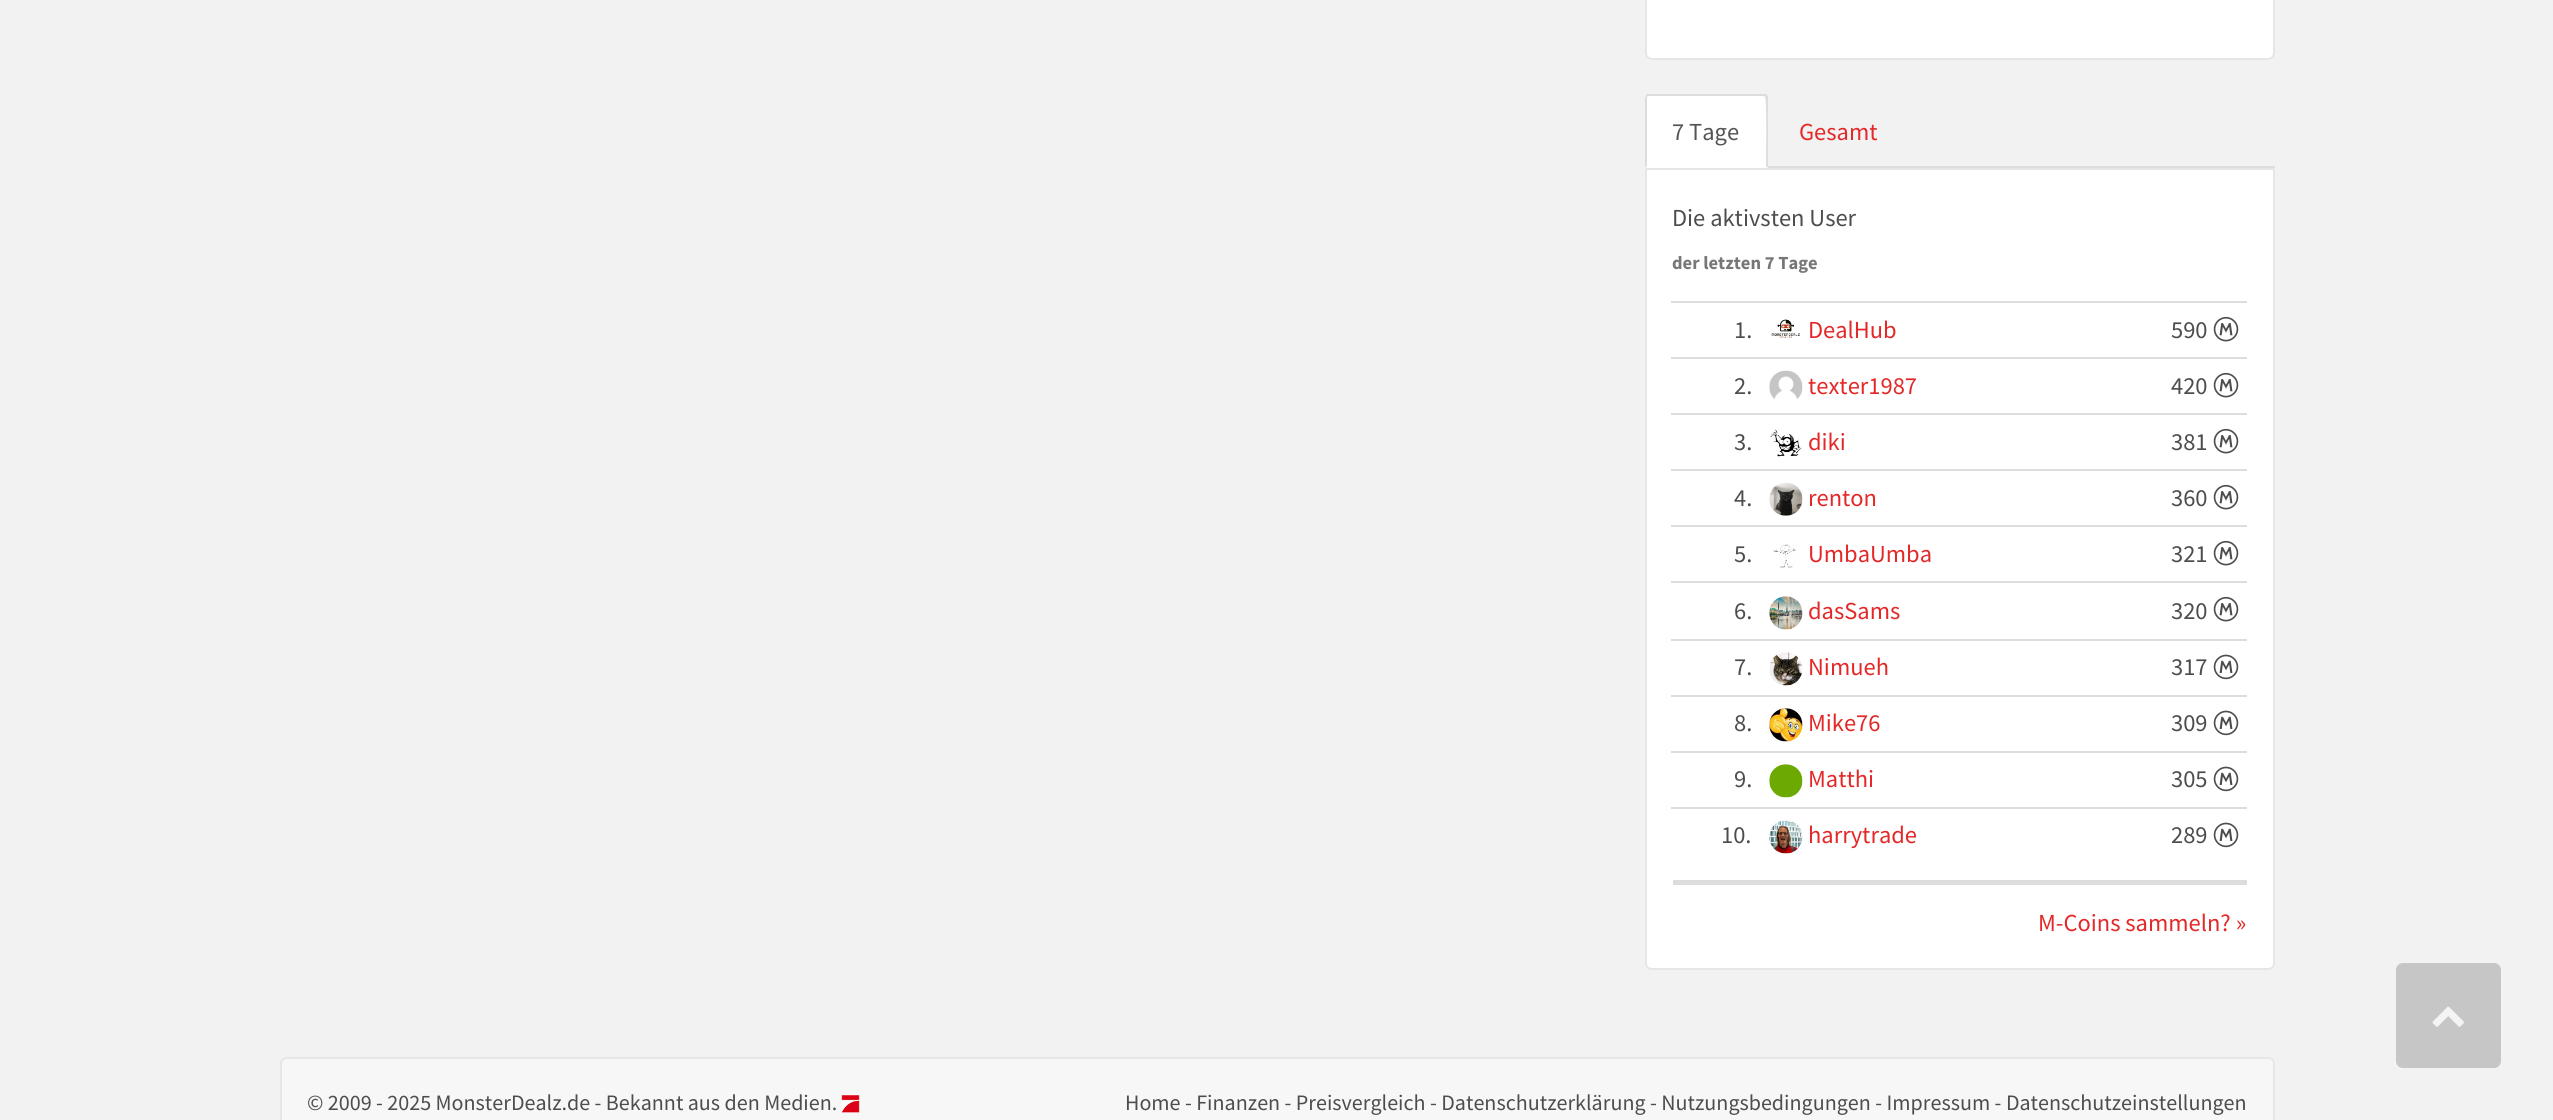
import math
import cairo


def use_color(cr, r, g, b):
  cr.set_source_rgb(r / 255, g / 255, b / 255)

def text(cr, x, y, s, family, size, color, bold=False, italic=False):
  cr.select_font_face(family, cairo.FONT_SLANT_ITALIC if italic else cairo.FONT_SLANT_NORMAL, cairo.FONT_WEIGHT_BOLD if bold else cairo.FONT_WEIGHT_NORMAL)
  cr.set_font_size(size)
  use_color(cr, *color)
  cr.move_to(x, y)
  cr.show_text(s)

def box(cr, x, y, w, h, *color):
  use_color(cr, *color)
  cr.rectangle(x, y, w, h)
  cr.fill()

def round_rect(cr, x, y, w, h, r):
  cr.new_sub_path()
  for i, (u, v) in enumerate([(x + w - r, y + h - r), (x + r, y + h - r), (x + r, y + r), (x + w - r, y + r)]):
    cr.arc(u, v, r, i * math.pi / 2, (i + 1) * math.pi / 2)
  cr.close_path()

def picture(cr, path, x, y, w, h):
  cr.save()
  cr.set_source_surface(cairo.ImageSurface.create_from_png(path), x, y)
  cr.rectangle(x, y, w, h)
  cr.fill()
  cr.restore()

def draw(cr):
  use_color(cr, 242, 242, 242)
  cr.paint()
  use_color(cr, 255, 255, 255)
  round_rect(cr, 1646, -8, 628, 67, 6)
  cr.fill_preserve()
  use_color(cr, 230, 230, 230)
  cr.stroke()
  box(cr, 1768, 166, 507, 2, 221, 221, 221)
  use_color(cr, 255, 255, 255)
  cr.new_path()
  cr.move_to(1649, 95)
  cr.line_to(1764, 95)
  cr.curve_to(1766, 95, 1768, 97, 1768, 99)
  cr.line_to(1768, 168)
  cr.line_to(1645, 168)
  cr.line_to(1645, 99)
  cr.curve_to(1645, 97, 1647, 95, 1649, 95)
  cr.close_path()
  cr.fill()
  use_color(cr, 221, 221, 221)
  cr.new_path()
  cr.move_to(1648, 96)
  cr.line_to(1647, 97)
  cr.line_to(1646, 95)
  cr.line_to(1647, 94)
  cr.line_to(1766, 94)
  cr.line_to(1767, 95)
  cr.line_to(1765, 97)
  cr.line_to(1764, 96)
  cr.close_path()
  cr.fill()
  cr.new_path()
  cr.move_to(1768, 96)
  cr.line_to(1768, 168)
  cr.line_to(1766, 166)
  cr.curve_to(1766, 159, 1767, 98, 1765, 97)
  cr.line_to(1767, 95)
  cr.close_path()
  cr.fill()
  cr.new_path()
  cr.move_to(1645, 168)
  cr.line_to(1647, 166)
  cr.line_to(1647, 97)
  cr.line_to(1646, 95)
  cr.line_to(1645, 98)
  cr.close_path()
  cr.fill()
  use_color(cr, 255, 255, 255)
  cr.new_path()
  cr.move_to(1646, 169)
  cr.line_to(2274, 169)
  cr.line_to(2274, 963)
  cr.curve_to(2274, 966.5, 2271.5, 969, 2268, 969)
  cr.line_to(1652, 969)
  cr.curve_to(1648.5, 969, 1646, 966.5, 1646, 963)
  cr.close_path()
  cr.fill_preserve()
  use_color(cr, 230, 230, 230)
  cr.stroke()
  picture(cr, "img_01.png", 1771, 319, 29, 19)
  box(cr, 1671, 301, 576, 2, 221, 221, 221)
  picture(cr, "img_02.png", 2213, 316, 26, 26)
  picture(cr, "img_03.png", 1769, 370, 34, 30)
  box(cr, 1671, 357, 576, 2, 221, 221, 221)
  picture(cr, "img_02.png", 2213, 372, 26, 26)
  picture(cr, "img_04.png", 1770, 429, 32, 28)
  box(cr, 1671, 413, 576, 2, 221, 221, 221)
  picture(cr, "img_02.png", 2213, 428, 26, 26)
  picture(cr, "img_05.png", 1769, 482, 34, 34)
  box(cr, 1671, 469, 576, 2, 221, 221, 221)
  picture(cr, "img_02.png", 2213, 484, 26, 26)
  picture(cr, "img_06.png", 1773, 544, 24, 24)
  box(cr, 1671, 525, 576, 2, 221, 221, 221)
  picture(cr, "img_02.png", 2213, 540, 26, 26)
  picture(cr, "img_07.png", 1769, 596, 34, 34)
  box(cr, 1671, 581, 576, 2, 221, 221, 221)
  picture(cr, "img_02.png", 2213, 596, 26, 26)
  picture(cr, "img_08.png", 1769, 652, 34, 34)
  box(cr, 1671, 639, 576, 2, 221, 221, 221)
  picture(cr, "img_09.png", 2213, 654, 26, 26)
  picture(cr, "img_10.png", 1769, 708, 34, 34)
  box(cr, 1671, 695, 576, 2, 221, 221, 221)
  picture(cr, "img_09.png", 2213, 710, 26, 26)
  picture(cr, "img_11.png", 1769, 764, 34, 34)
  box(cr, 1671, 751, 576, 2, 221, 221, 221)
  picture(cr, "img_09.png", 2213, 766, 26, 26)
  picture(cr, "img_12.png", 1769, 820, 34, 34)
  box(cr, 1671, 807, 576, 2, 221, 221, 221)
  picture(cr, "img_09.png", 2213, 822, 26, 26)
  box(cr, 1673, 880, 574, 5, 221, 221, 221)
  use_color(cr, 198, 198, 198)
  round_rect(cr, 2396, 963, 105, 105, 7)
  cr.fill()
  picture(cr, "img_13.png", 2432, 1006, 32, 21)
  use_color(cr, 247, 247, 247)
  cr.new_path()
  cr.move_to(287, 1057)
  cr.line_to(2268, 1057)
  cr.curve_to(2272, 1057, 2275, 1060, 2275, 1064)
  cr.line_to(2275, 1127)
  cr.line_to(280, 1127)
  cr.line_to(280, 1064)
  cr.curve_to(280, 1060, 283, 1057, 287, 1057)
  cr.close_path()
  cr.fill()
  use_color(cr, 230, 230, 230)
  cr.set_fill_rule(cairo.FILL_RULE_EVEN_ODD)
  cr.new_path()
  cr.move_to(287, 1057)
  cr.line_to(2268, 1057)
  cr.curve_to(2272, 1057, 2275, 1060, 2275, 1064)
  cr.line_to(2275, 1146)
  cr.line_to(280, 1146)
  cr.line_to(280, 1064)
  cr.curve_to(280, 1060, 283, 1057, 287, 1057)
  cr.close_path()
  cr.move_to(287, 1059)
  cr.line_to(2268, 1059)
  cr.curve_to(2271, 1059, 2273, 1061, 2273, 1064)
  cr.line_to(2273, 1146)
  cr.line_to(282, 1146)
  cr.line_to(282, 1064)
  cr.curve_to(282, 1061, 284, 1059, 287, 1059)
  cr.close_path()
  cr.fill()
  picture(cr, "img_14.png", 841, 1095, 19, 18)
  text(cr, 1672, 140, "7 Tage", "Source Sans Pro", 24.5, (85, 85, 85))
  text(cr, 1799, 140, "Gesamt", "Source Sans Pro", 24.5, (228, 40, 40))
  text(cr, 1672, 226, "Die aktivsten User", "Source Sans Pro", 24.5, (77, 77, 77))
  text(cr, 1672, 269, "der letzten 7 Tage", "Source Sans Pro", 18.5, (119, 119, 119), bold=True)
  text(cr, 1734, 338, "1.", "Source Sans Pro", 24.5, (77, 77, 77))
  text(cr, 1808, 338, "DealHub", "Source Sans Pro", 24.5, (228, 40, 40))
  text(cr, 2171, 338, "590", "Source Sans Pro", 24.5, (77, 77, 77))
  text(cr, 1734, 394, "2.", "Source Sans Pro", 24.5, (77, 77, 77))
  text(cr, 1808, 394, "texter1987", "Source Sans Pro", 24.5, (228, 40, 40))
  text(cr, 2171, 394, "420", "Source Sans Pro", 24.5, (77, 77, 77))
  text(cr, 1734, 450, "3.", "Source Sans Pro", 24.5, (77, 77, 77))
  text(cr, 1808, 450, "diki", "Source Sans Pro", 24.5, (228, 40, 40))
  text(cr, 2171, 450, "381", "Source Sans Pro", 24.5, (77, 77, 77))
  text(cr, 1734, 506, "4.", "Source Sans Pro", 24.5, (77, 77, 77))
  text(cr, 1808, 506, "renton", "Source Sans Pro", 24.5, (228, 40, 40))
  text(cr, 2171, 506, "360", "Source Sans Pro", 24.5, (77, 77, 77))
  text(cr, 1734, 562, "5.", "Source Sans Pro", 24.5, (77, 77, 77))
  text(cr, 1808, 562, "UmbaUmba", "Source Sans Pro", 24.5, (228, 40, 40))
  text(cr, 2171, 562, "321", "Source Sans Pro", 24.5, (77, 77, 77))
  text(cr, 1734, 619, "6.", "Source Sans Pro", 24.5, (77, 77, 77))
  text(cr, 1808, 619, "dasSams", "Source Sans Pro", 24.5, (228, 40, 40))
  text(cr, 2171, 619, "320", "Source Sans Pro", 24.5, (77, 77, 77))
  text(cr, 1734, 675, "7.", "Source Sans Pro", 24.5, (77, 77, 77))
  text(cr, 1808, 675, "Nimueh", "Source Sans Pro", 24.5, (228, 40, 40))
  text(cr, 2171, 675, "317", "Source Sans Pro", 24.5, (77, 77, 77))
  text(cr, 1734, 731, "8.", "Source Sans Pro", 24.5, (77, 77, 77))
  text(cr, 1808, 731, "Mike76", "Source Sans Pro", 24.5, (228, 40, 40))
  text(cr, 2171, 731, "309", "Source Sans Pro", 24.5, (77, 77, 77))
  text(cr, 1734, 787, "9.", "Source Sans Pro", 24.5, (77, 77, 77))
  text(cr, 1808, 787, "Matthi", "Source Sans Pro", 24.5, (228, 40, 40))
  text(cr, 2171, 787, "305", "Source Sans Pro", 24.5, (77, 77, 77))
  text(cr, 1721, 843, "10.", "Source Sans Pro", 24.5, (77, 77, 77))
  text(cr, 1808, 843, "harrytrade", "Source Sans Pro", 24.5, (228, 40, 40))
  text(cr, 2171, 843, "289", "Source Sans Pro", 24.5, (77, 77, 77))
  text(cr, 2038, 931, "M-Coins sammeln? »", "Source Sans Pro", 24.5, (228, 40, 40))
  text(cr, 307, 1110, "© 2009 - 2025 MonsterDealz.de - Bekannt aus den Medien.", "Source Sans Pro", 22.05, (77, 77, 77))
  text(cr, 1125, 1110, "Home - Finanzen - Preisvergleich - Datenschutzerklärung - Nutzungsbedingungen - Impressum - Datenschutzeinstellungen", "Source Sans Pro", 22.05, (77, 77, 77))


surface = cairo.ImageSurface(cairo.FORMAT_RGB24, 2553, 1120)
cr = cairo.Context(surface)
options = cairo.FontOptions()
options.set_hint_metrics(cairo.HINT_METRICS_OFF)
options.set_hint_style(cairo.HINT_STYLE_NONE)
cr.set_font_options(options)
cr.set_miter_limit(4)
draw(cr)
surface.write_to_png("out.png")
